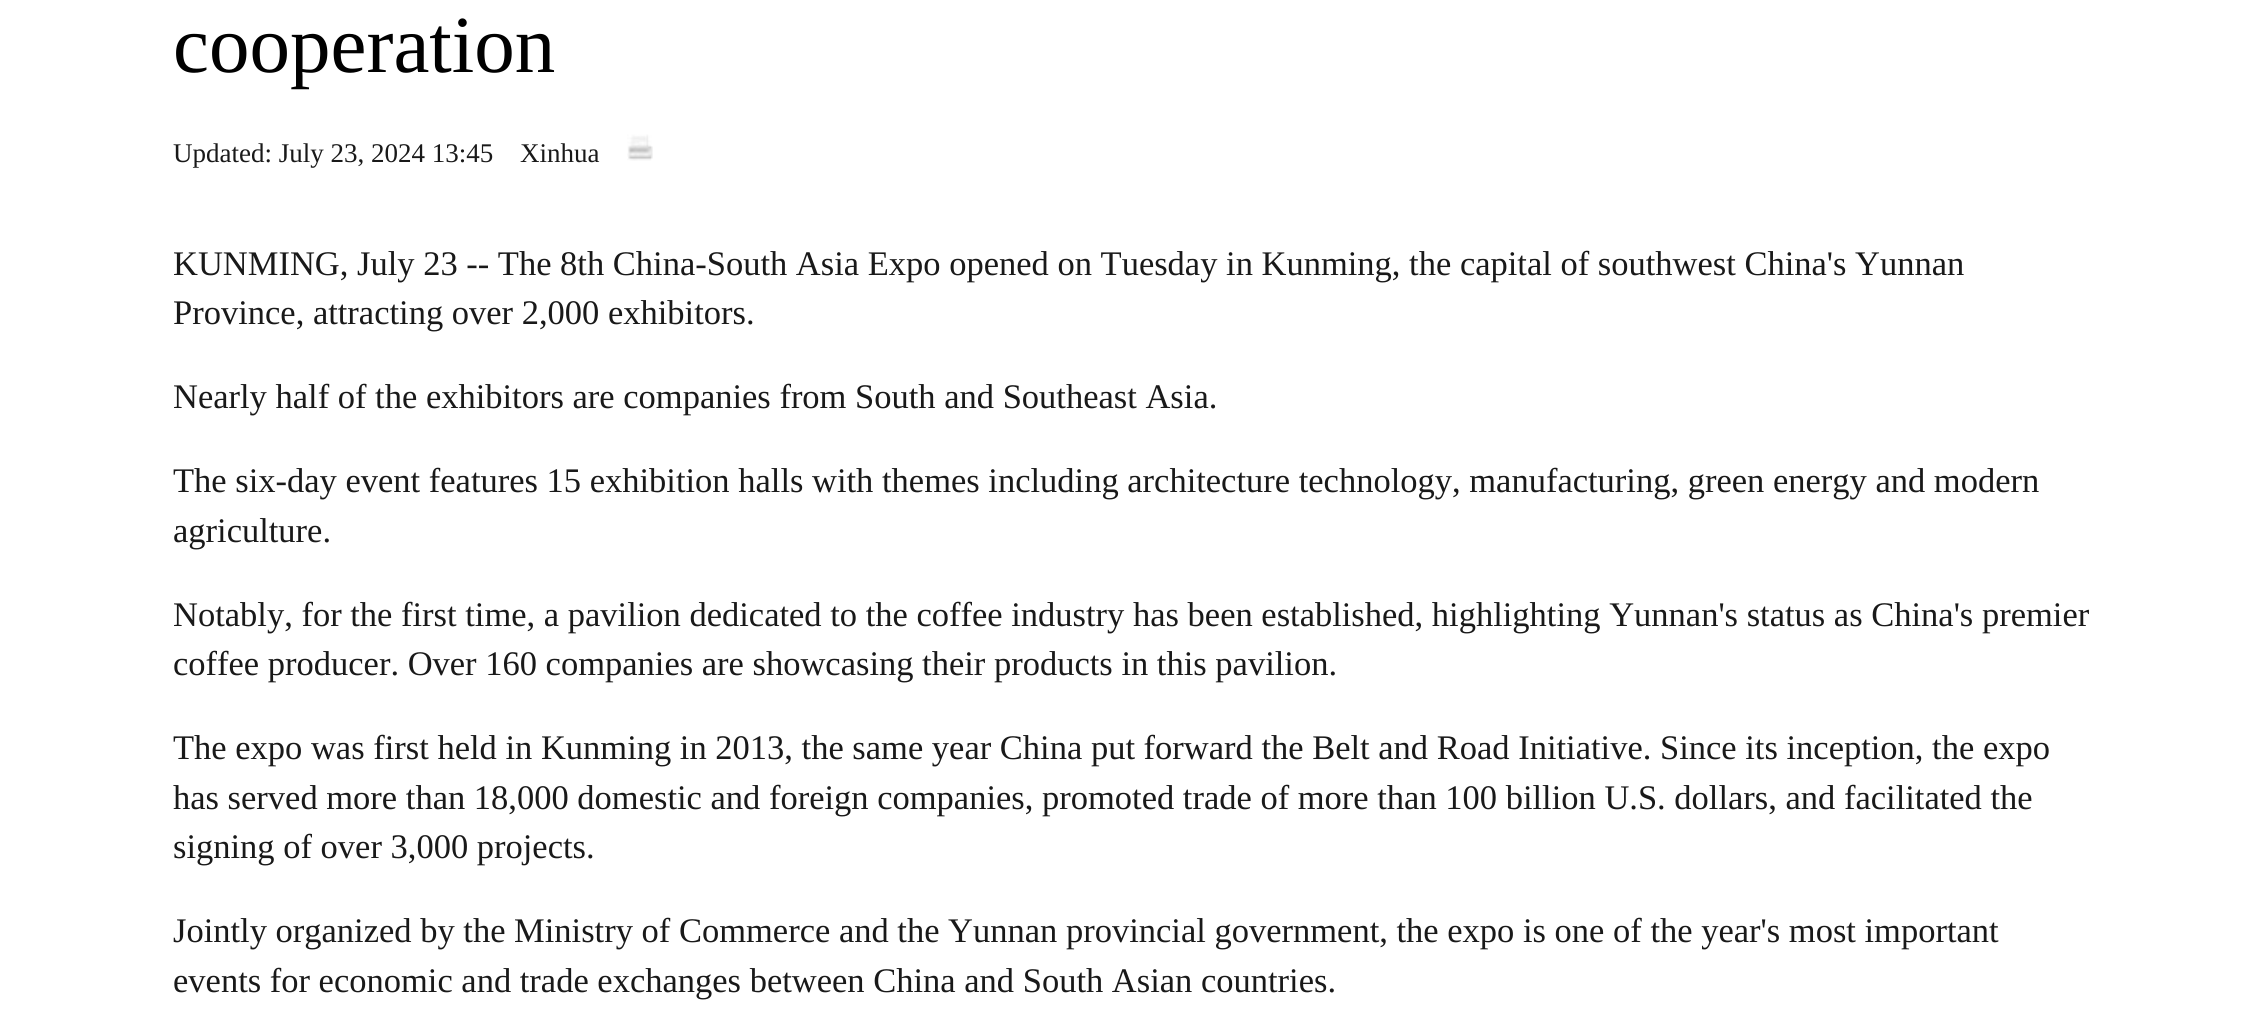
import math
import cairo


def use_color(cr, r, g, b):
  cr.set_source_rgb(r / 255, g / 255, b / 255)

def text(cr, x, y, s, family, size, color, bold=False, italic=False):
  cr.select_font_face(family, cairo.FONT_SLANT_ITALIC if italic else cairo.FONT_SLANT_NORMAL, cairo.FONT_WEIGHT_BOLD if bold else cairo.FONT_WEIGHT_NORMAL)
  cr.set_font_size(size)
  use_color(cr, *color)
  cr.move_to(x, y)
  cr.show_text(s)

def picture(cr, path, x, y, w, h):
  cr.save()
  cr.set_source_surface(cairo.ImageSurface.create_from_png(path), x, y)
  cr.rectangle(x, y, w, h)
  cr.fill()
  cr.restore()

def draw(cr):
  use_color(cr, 255, 255, 255)
  cr.paint()
  picture(cr, "img_01.png", 627, 134, 26, 27)
  text(cr, 173, 72, "cooperation", "Liberation Serif", 81, (0, 0, 0))
  text(cr, 173, 162, "Updated: July 23, 2024 13:45", "Liberation Serif", 27, (25, 25, 25))
  text(cr, 520, 162, "Xinhua", "Liberation Serif", 27, (25, 25, 25))
  text(cr, 173, 275, "KUNMING, July 23 -- The 8th China-South Asia Expo opened on Tuesday in Kunming, the capital of southwest China's Yunnan", "Liberation Serif", 34.5, (25, 25, 25))
  text(cr, 173, 324, "Province, attracting over 2,000 exhibitors.", "Liberation Serif", 34.5, (25, 25, 25))
  text(cr, 173, 408, "Nearly half of the exhibitors are companies from South and Southeast Asia.", "Liberation Serif", 34.5, (25, 25, 25))
  text(cr, 173, 492, "The six-day event features 15 exhibition halls with themes including architecture technology, manufacturing, green energy and modern", "Liberation Serif", 34.5, (25, 25, 25))
  text(cr, 173, 542, "agriculture.", "Liberation Serif", 34.5, (25, 25, 25))
  text(cr, 173, 626, "Notably, for the first time, a pavilion dedicated to the coffee industry has been established, highlighting Yunnan's status as China's premier", "Liberation Serif", 34.5, (25, 25, 25))
  text(cr, 173, 675, "coffee producer. Over 160 companies are showcasing their products in this pavilion.", "Liberation Serif", 34.5, (25, 25, 25))
  text(cr, 173, 759, "The expo was first held in Kunming in 2013, the same year China put forward the Belt and Road Initiative. Since its inception, the expo", "Liberation Serif", 34.5, (25, 25, 25))
  text(cr, 173, 809, "has served more than 18,000 domestic and foreign companies, promoted trade of more than 100 billion U.S. dollars, and facilitated the", "Liberation Serif", 34.5, (25, 25, 25))
  text(cr, 173, 858, "signing of over 3,000 projects.", "Liberation Serif", 34.5, (25, 25, 25))
  text(cr, 173, 942, "Jointly organized by the Ministry of Commerce and the Yunnan provincial government, the expo is one of the year's most important", "Liberation Serif", 34.5, (25, 25, 25))
  text(cr, 173, 992, "events for economic and trade exchanges between China and South Asian countries.", "Liberation Serif", 34.5, (25, 25, 25))


surface = cairo.ImageSurface(cairo.FORMAT_RGB24, 2264, 1009)
cr = cairo.Context(surface)
options = cairo.FontOptions()
options.set_hint_metrics(cairo.HINT_METRICS_OFF)
options.set_hint_style(cairo.HINT_STYLE_NONE)
cr.set_font_options(options)
cr.set_miter_limit(4)
draw(cr)
surface.write_to_png("out.png")
